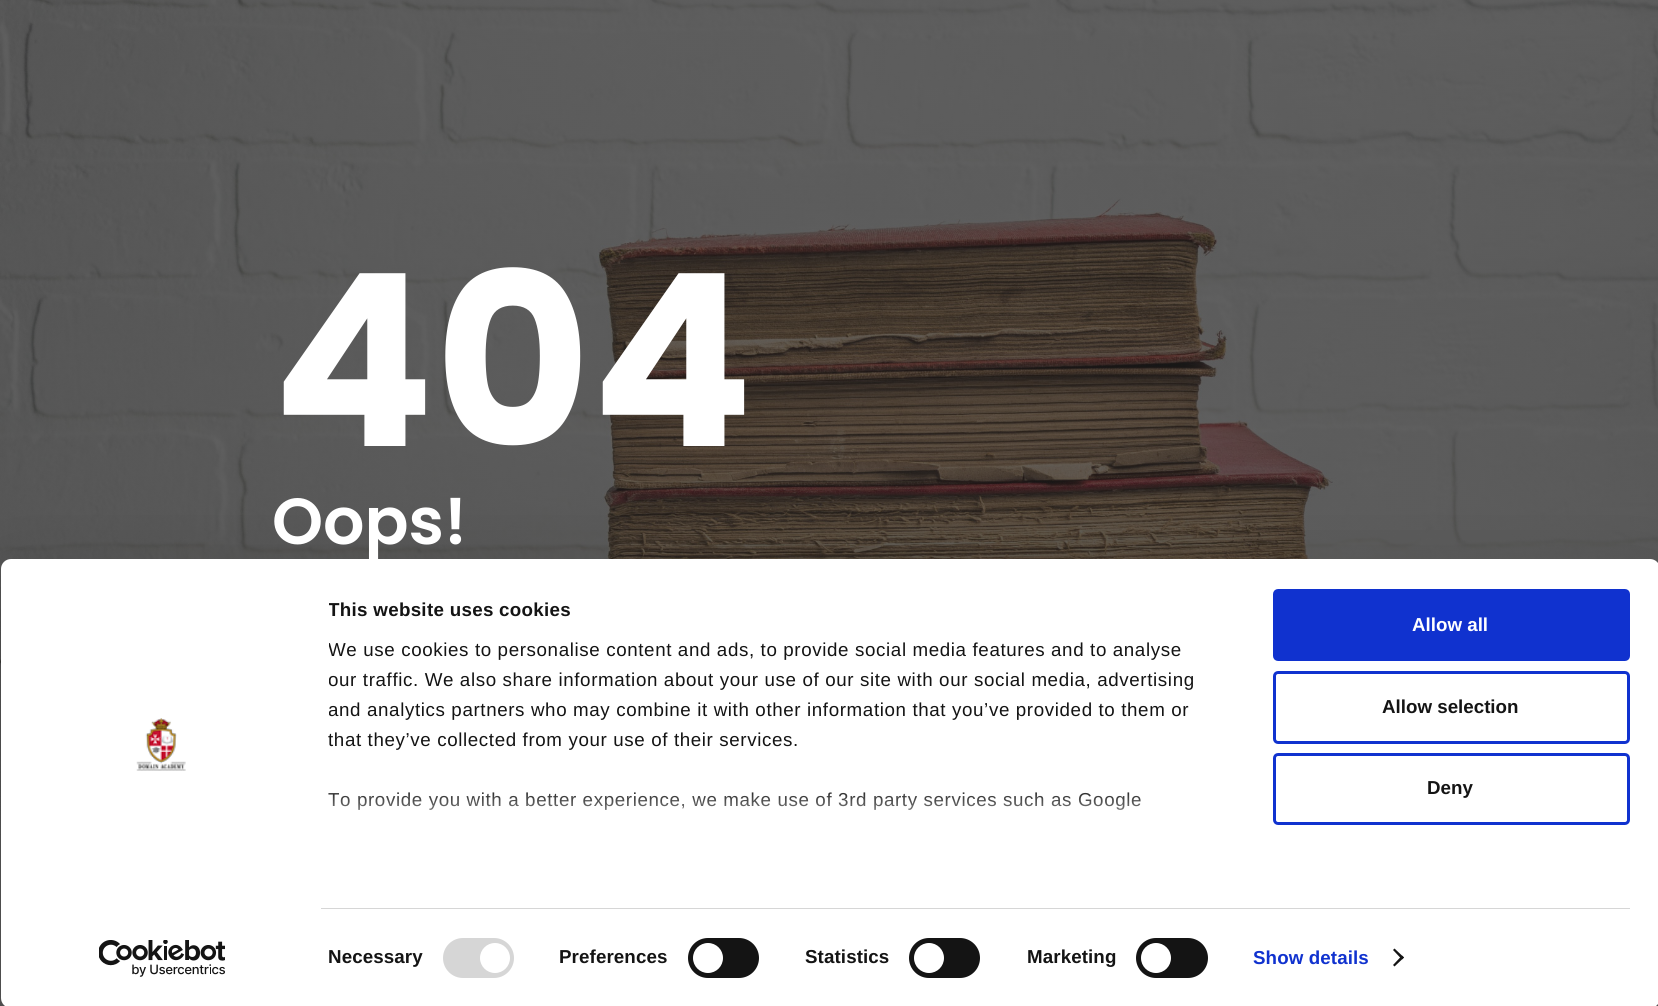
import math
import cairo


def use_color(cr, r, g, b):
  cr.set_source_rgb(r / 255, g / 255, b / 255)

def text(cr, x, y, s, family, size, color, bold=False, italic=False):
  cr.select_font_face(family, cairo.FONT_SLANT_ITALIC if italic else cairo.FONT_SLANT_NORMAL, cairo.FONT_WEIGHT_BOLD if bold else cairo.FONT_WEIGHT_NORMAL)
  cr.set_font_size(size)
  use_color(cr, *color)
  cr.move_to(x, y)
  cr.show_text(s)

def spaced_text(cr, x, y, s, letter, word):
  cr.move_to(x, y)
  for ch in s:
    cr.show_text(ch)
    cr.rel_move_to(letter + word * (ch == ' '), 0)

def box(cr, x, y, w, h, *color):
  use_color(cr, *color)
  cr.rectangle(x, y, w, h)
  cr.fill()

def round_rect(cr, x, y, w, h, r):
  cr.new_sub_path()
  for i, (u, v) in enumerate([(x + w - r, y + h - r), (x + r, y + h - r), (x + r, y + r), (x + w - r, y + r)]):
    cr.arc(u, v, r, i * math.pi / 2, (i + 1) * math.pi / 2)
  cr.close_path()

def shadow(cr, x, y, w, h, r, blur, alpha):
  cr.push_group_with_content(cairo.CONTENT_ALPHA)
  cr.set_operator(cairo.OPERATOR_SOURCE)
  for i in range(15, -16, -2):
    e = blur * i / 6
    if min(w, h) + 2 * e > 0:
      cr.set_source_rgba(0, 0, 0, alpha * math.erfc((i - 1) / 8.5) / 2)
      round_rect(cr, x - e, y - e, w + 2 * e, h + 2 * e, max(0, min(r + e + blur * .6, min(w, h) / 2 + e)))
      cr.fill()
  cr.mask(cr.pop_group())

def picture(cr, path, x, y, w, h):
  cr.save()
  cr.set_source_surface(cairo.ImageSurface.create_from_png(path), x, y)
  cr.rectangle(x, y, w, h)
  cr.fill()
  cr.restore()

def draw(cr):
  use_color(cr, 255, 255, 255)
  cr.paint()
  picture(cr, "img_01.png", 0, 0, 1658, 1006)
  use_color(cr, 0, 0, 0)
  shadow(cr, 1, 596, 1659, 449, 10, 44, 0.3)
  use_color(cr, 255, 255, 255)
  round_rect(cr, 1, 559, 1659, 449, 10)
  cr.fill()
  picture(cr, "img_02.png", 136, 718, 50, 53)
  picture(cr, "img_03.png", 99, 940, 126, 37)
  box(cr, 321, 908, 1309, 1, 214, 214, 214)
  round_rect(cr, 443, 938, 71, 40, 20)
  cr.fill()
  use_color(cr, 255, 255, 255)
  cr.arc(495, 958, 15, 0, 2 * math.pi)
  cr.fill()
  use_color(cr, 20, 20, 20)
  round_rect(cr, 688, 938, 71, 40, 20)
  cr.fill()
  use_color(cr, 255, 255, 255)
  cr.arc(708, 958, 15, 0, 2 * math.pi)
  cr.fill()
  use_color(cr, 20, 20, 20)
  round_rect(cr, 909, 938, 71, 40, 20)
  cr.fill()
  use_color(cr, 255, 255, 255)
  cr.arc(929, 958, 15, 0, 2 * math.pi)
  cr.fill()
  use_color(cr, 20, 20, 20)
  round_rect(cr, 1136, 938, 72, 40, 20)
  cr.fill()
  use_color(cr, 255, 255, 255)
  cr.arc(1156, 958, 15, 0, 2 * math.pi)
  cr.fill()
  use_color(cr, 20, 20, 20)
  cr.new_path()
  cr.move_to(1394.5, 948.5)
  cr.line_to(1404, 957.5)
  cr.line_to(1402, 959.5)
  cr.line_to(1393, 950)
  cr.close_path()
  cr.fill()
  cr.new_path()
  cr.move_to(1402, 955.5)
  cr.line_to(1404, 957.5)
  cr.line_to(1394.5, 966.5)
  cr.line_to(1393, 965)
  cr.close_path()
  cr.fill()
  use_color(cr, 16, 50, 207)
  round_rect(cr, 1274.5, 590.5, 354, 69, 3.5)
  cr.fill_preserve()
  cr.set_line_width(3)
  cr.stroke()
  round_rect(cr, 1274.5, 672.5, 354, 70, 3.5)
  cr.stroke()
  round_rect(cr, 1274.5, 754.5, 354, 69, 3.5)
  cr.stroke()
  text(cr, 272, 446, "404", "Poppins", 240, (255, 255, 255), bold=True)
  text(cr, 272, 544, "Oops!", "Poppins SemiBold", 65, (255, 255, 255))
  cr.save()
  cr.rectangle(329, 596, 907, 277)
  cr.clip()
  cr.select_font_face("Liberation Sans", cairo.FONT_SLANT_NORMAL, cairo.FONT_WEIGHT_BOLD)
  cr.set_font_size(18.75)
  use_color(cr, 20, 20, 20)
  spaced_text(cr, 328, 616, "This website uses cookies", 0.3, 0)
  cr.select_font_face("Liberation Sans")
  spaced_text(cr, 328, 656, "We use cookies to personalise content and ads, to provide social media features and to analyse", 0.62, 0)
  spaced_text(cr, 328, 686, "our traffic. We also share information about your use of our site with our social media, advertising", 0.62, 0)
  spaced_text(cr, 328, 716, "and analytics partners who may combine it with other information that you’ve provided to them or", 0.62, 0)
  cr.restore()
  cr.select_font_face("Liberation Sans")
  cr.set_font_size(18.75)
  use_color(cr, 20, 20, 20)
  spaced_text(cr, 328, 746, "that they’ve collected from your use of their services.", 0.62, 0)
  spaced_text(cr, 328, 806, "To provide you with a better experience, we make use of 3rd party services such as Google", 0.62, 0)
  gradient = cairo.LinearGradient(769, 879, 769, 786)
  gradient.add_color_stop_rgba(0, 1, 1, 1, 1)
  gradient.add_color_stop_rgba(0.5, 1, 1, 1, 0.8)
  gradient.add_color_stop_rgba(1, 1, 1, 1, 0)
  cr.set_source(gradient)
  cr.rectangle(328, 792, 813, 18)
  cr.fill()
  cr.select_font_face("Liberation Sans", cairo.FONT_SLANT_NORMAL, cairo.FONT_WEIGHT_BOLD)
  use_color(cr, 20, 20, 20)
  spaced_text(cr, 328, 963, "Necessary", 0.1, 0)
  spaced_text(cr, 559, 963, "Preferences", 0.1, 0)
  spaced_text(cr, 805, 963, "Statistics", 0.1, 0)
  spaced_text(cr, 1027, 963, "Marketing", 0.1, 0)
  use_color(cr, 16, 50, 207)
  spaced_text(cr, 1253, 964, "Show details", 0.1, 0)
  text(cr, 1412, 631, "Allow all", "Liberation Sans", 18.75, (255, 255, 255), bold=True)
  text(cr, 1382, 713, "Allow selection", "Liberation Sans", 18.75, (20, 20, 20), bold=True)
  text(cr, 1427, 794, "Deny", "Liberation Sans", 18.75, (20, 20, 20), bold=True)


surface = cairo.ImageSurface(cairo.FORMAT_RGB24, 1658, 1006)
cr = cairo.Context(surface)
options = cairo.FontOptions()
options.set_hint_metrics(cairo.HINT_METRICS_OFF)
options.set_hint_style(cairo.HINT_STYLE_NONE)
cr.set_font_options(options)
cr.set_miter_limit(4)
draw(cr)
surface.write_to_png("out.png")
